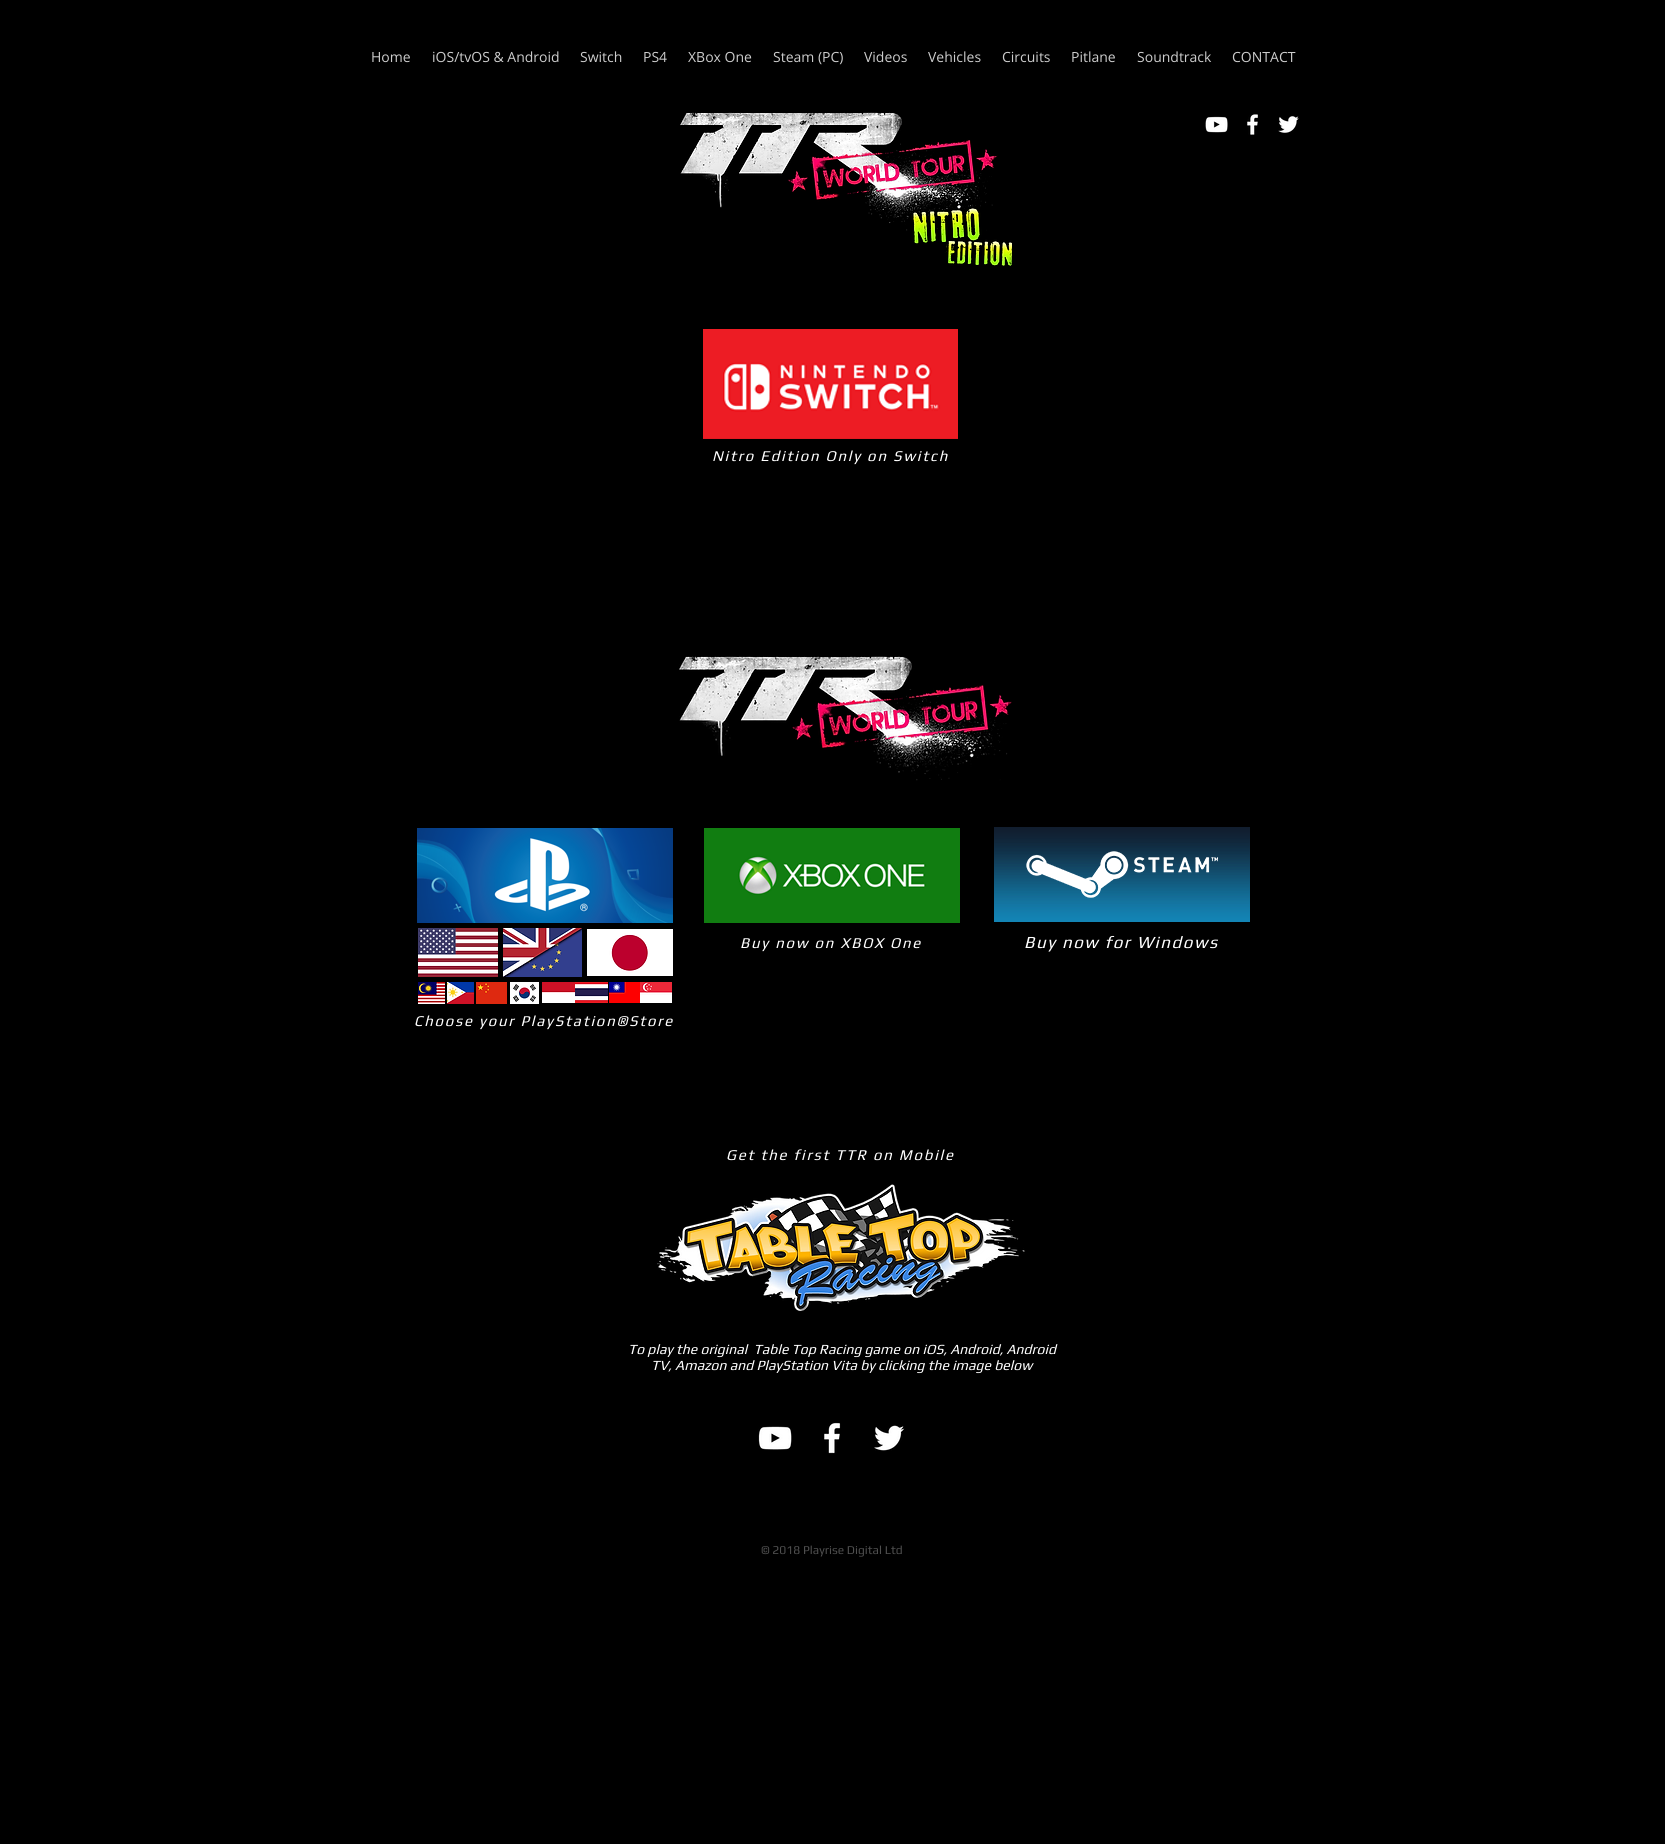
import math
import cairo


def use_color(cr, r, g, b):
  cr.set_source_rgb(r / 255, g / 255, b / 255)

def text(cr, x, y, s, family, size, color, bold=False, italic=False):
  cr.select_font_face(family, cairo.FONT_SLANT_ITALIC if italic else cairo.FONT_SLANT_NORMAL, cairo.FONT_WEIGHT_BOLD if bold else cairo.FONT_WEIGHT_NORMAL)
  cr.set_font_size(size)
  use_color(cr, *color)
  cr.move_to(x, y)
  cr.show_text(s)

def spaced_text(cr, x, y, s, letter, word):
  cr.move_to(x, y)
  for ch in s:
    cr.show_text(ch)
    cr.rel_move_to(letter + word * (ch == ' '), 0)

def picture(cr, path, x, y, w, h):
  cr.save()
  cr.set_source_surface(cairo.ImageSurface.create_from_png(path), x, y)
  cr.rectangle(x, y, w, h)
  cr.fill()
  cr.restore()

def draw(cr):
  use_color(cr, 0, 0, 0)
  cr.paint()
  picture(cr, "img_01.png", 1205, 116, 23, 17)
  picture(cr, "img_02.png", 1247, 114, 11, 21)
  picture(cr, "img_03.png", 1278, 116, 21, 17)
  picture(cr, "img_04.png", 680, 112, 332, 154)
  picture(cr, "img_05.png", 703, 329, 255, 110)
  picture(cr, "img_06.png", 679, 656, 333, 125)
  picture(cr, "img_07.png", 704, 828, 256, 95)
  picture(cr, "img_08.png", 994, 827, 256, 95)
  picture(cr, "img_09.png", 417, 828, 256, 95)
  picture(cr, "img_10.png", 418, 928, 80, 49)
  picture(cr, "img_11.png", 503, 928, 79, 49)
  picture(cr, "img_12.png", 587, 929, 86, 47)
  picture(cr, "img_13.png", 418, 982, 27, 22)
  picture(cr, "img_14.png", 447, 982, 27, 22)
  picture(cr, "img_15.png", 476, 982, 31, 22)
  picture(cr, "img_16.png", 510, 982, 29, 22)
  picture(cr, "img_17.png", 542, 982, 33, 21)
  picture(cr, "img_18.png", 575, 982, 33, 21)
  picture(cr, "img_19.png", 609, 982, 31, 21)
  picture(cr, "img_20.png", 640, 982, 32, 21)
  picture(cr, "img_21.png", 657, 1184, 368, 127)
  picture(cr, "img_22.png", 758, 1426, 34, 24)
  picture(cr, "img_23.png", 824, 1422, 17, 32)
  picture(cr, "img_24.png", 874, 1425, 31, 26)
  text(cr, 371, 62, "Home", "Open Sans", 14, (204, 204, 204))
  text(cr, 432, 62, "iOS/tvOS & Android", "Open Sans", 14, (204, 204, 204))
  text(cr, 580, 62, "Switch", "Open Sans", 14, (204, 204, 204))
  text(cr, 643, 62, "PS4", "Open Sans", 14, (204, 204, 204))
  text(cr, 688, 62, "XBox One", "Open Sans", 14, (204, 204, 204))
  text(cr, 773, 62, "Steam (PC)", "Open Sans", 14, (204, 204, 204))
  text(cr, 864, 62, "Videos", "Open Sans", 14, (204, 204, 204))
  text(cr, 928, 62, "Vehicles", "Open Sans", 14, (204, 204, 204))
  text(cr, 1002, 62, "Circuits", "Open Sans", 14, (204, 204, 204))
  text(cr, 1071, 62, "Pitlane", "Open Sans", 14, (204, 204, 204))
  text(cr, 1137, 62, "Soundtrack", "Open Sans", 14, (204, 204, 204))
  text(cr, 1232, 62, "CONTACT", "Open Sans", 14, (204, 204, 204))
  cr.select_font_face("Play", cairo.FONT_SLANT_ITALIC)
  cr.set_font_size(15)
  use_color(cr, 255, 255, 255)
  spaced_text(cr, 712, 461, "Nitro Edition Only on Switch", 1.75, 0)
  spaced_text(cr, 740, 948, "Buy now on XBOX One", 1.75, 0)
  cr.set_font_size(17)
  spaced_text(cr, 1024, 948, "Buy now for Windows", 1.5, 0)
  cr.set_font_size(15)
  spaced_text(cr, 414, 1026, "Choose your PlayStation®Store", 1.75, 0)
  spaced_text(cr, 726, 1160, "Get the first TTR on Mobile", 1.75, 0)
  text(cr, 628, 1354, "To play the original  Table Top Racing game on iOS, Android, Android", "Play", 14, (255, 255, 255), italic=True)
  text(cr, 651, 1370, "TV, Amazon and PlayStation Vita by clicking the image below", "Play", 14, (255, 255, 255), italic=True)
  text(cr, 761, 1554, "© 2018 Playrise Digital Ltd", "Play", 12, (79, 79, 79))


surface = cairo.ImageSurface(cairo.FORMAT_RGB24, 1665, 1844)
cr = cairo.Context(surface)
options = cairo.FontOptions()
options.set_hint_metrics(cairo.HINT_METRICS_OFF)
options.set_hint_style(cairo.HINT_STYLE_NONE)
cr.set_font_options(options)
cr.set_miter_limit(4)
draw(cr)
surface.write_to_png("out.png")
